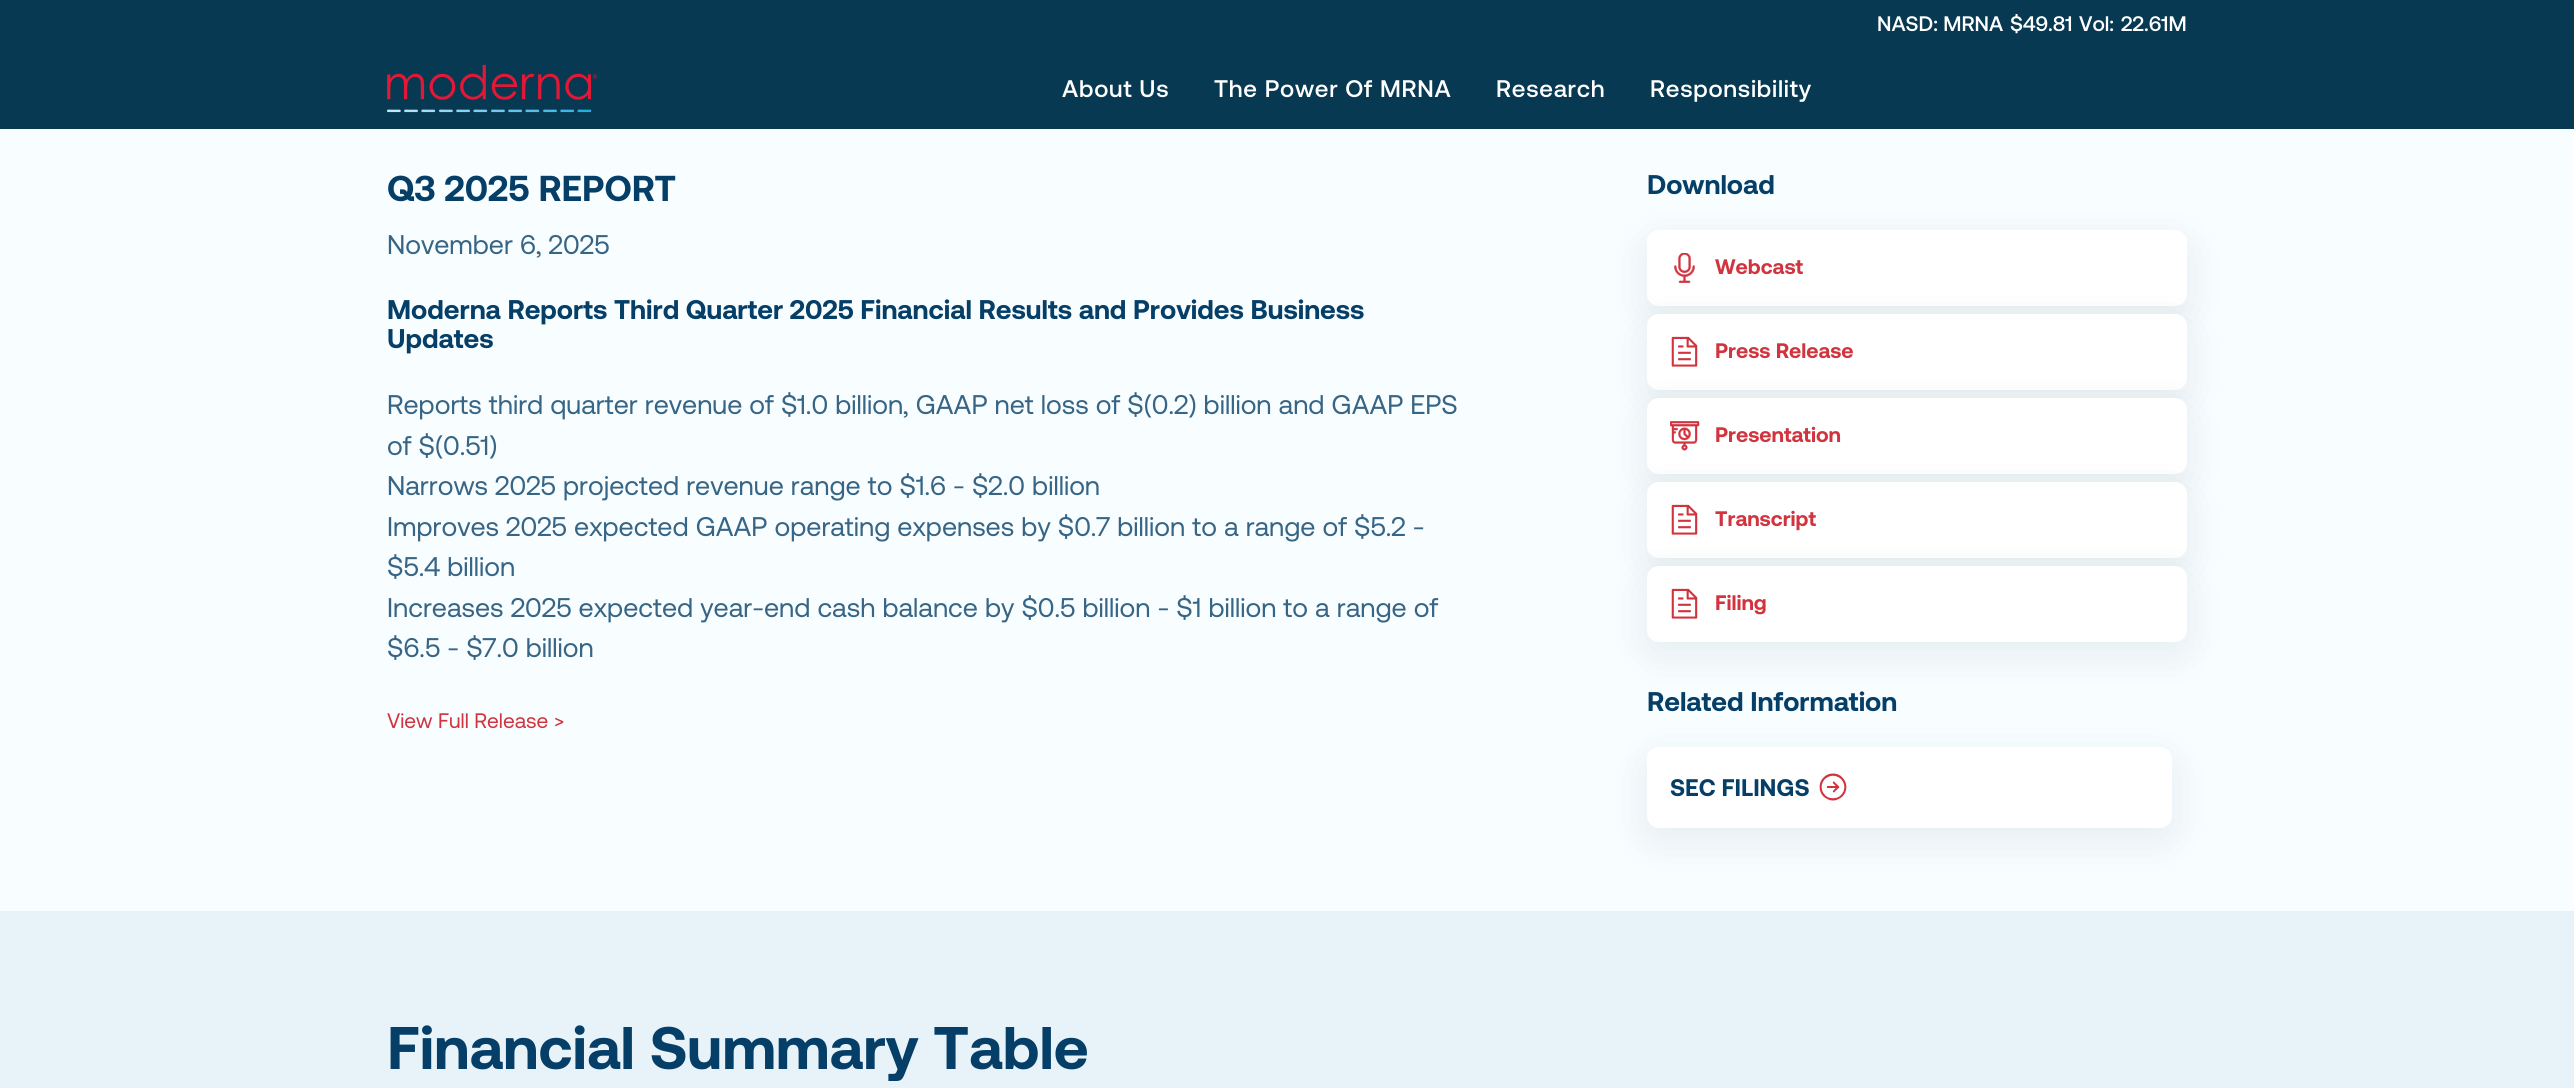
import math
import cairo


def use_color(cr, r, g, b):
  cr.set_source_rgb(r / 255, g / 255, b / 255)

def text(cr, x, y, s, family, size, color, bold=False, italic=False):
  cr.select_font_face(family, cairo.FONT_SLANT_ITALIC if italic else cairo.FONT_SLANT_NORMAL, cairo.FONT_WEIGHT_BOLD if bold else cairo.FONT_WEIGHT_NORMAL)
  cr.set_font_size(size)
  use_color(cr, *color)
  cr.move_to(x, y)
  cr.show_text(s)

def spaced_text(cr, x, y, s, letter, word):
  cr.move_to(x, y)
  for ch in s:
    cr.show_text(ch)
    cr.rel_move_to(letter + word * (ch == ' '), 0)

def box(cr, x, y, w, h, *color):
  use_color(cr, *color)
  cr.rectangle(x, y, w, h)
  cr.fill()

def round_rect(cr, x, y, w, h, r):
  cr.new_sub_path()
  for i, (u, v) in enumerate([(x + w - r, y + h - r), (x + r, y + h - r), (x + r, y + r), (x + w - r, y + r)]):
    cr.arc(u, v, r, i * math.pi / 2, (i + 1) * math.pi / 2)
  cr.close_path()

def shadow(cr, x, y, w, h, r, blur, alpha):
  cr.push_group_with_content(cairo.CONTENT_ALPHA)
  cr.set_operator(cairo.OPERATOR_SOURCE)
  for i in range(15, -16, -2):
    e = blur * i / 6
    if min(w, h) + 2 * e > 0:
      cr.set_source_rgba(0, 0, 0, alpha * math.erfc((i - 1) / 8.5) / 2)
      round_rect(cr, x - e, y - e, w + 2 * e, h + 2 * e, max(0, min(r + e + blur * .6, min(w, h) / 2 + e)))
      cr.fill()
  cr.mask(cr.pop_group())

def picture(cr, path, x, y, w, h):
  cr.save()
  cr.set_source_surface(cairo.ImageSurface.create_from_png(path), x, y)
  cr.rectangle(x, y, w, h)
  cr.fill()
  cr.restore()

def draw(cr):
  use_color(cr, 248, 253, 255)
  cr.paint()
  box(cr, 0, 0, 2574, 129, 8, 57, 82)
  picture(cr, "img_01.png", 387, 64, 210, 49)
  use_color(cr, 6, 34, 49)
  shadow(cr, 1647, 242, 540, 76, 12, 21, 0.08)
  use_color(cr, 255, 255, 255)
  round_rect(cr, 1647, 230, 540, 76, 12)
  cr.fill()
  use_color(cr, 6, 34, 49)
  shadow(cr, 1647, 326, 540, 76, 12, 21, 0.08)
  picture(cr, "img_02.png", 1674, 253, 21, 30)
  use_color(cr, 255, 255, 255)
  round_rect(cr, 1647, 314, 540, 76, 12)
  cr.fill()
  use_color(cr, 6, 34, 49)
  shadow(cr, 1647, 410, 540, 76, 12, 21, 0.08)
  picture(cr, "img_03.png", 1671, 336, 27, 31)
  use_color(cr, 255, 255, 255)
  round_rect(cr, 1647, 398, 540, 76, 12)
  cr.fill()
  use_color(cr, 6, 34, 49)
  shadow(cr, 1647, 494, 540, 76, 12, 21, 0.08)
  picture(cr, "img_04.png", 1670, 421, 30, 30)
  use_color(cr, 255, 255, 255)
  round_rect(cr, 1647, 482, 540, 76, 12)
  cr.fill()
  use_color(cr, 6, 34, 49)
  shadow(cr, 1647, 578, 540, 76, 12, 21, 0.08)
  picture(cr, "img_03.png", 1671, 504, 27, 31)
  use_color(cr, 255, 255, 255)
  round_rect(cr, 1647, 566, 540, 76, 12)
  cr.fill()
  picture(cr, "img_05.png", 1671, 588, 27, 31)
  use_color(cr, 6, 34, 49)
  shadow(cr, 1647, 759, 525, 81, 12, 21, 0.08)
  use_color(cr, 255, 255, 255)
  round_rect(cr, 1647, 747, 525, 81, 12)
  cr.fill()
  picture(cr, "img_06.png", 1819, 773, 28, 28)
  box(cr, 0, 911, 2574, 177, 232, 242, 249)
  text(cr, 1877, 31, "NASD: MRNA", "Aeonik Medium", 21, (255, 255, 255))
  text(cr, 2010, 31, "$49.81", "Aeonik Medium", 21, (255, 255, 255))
  text(cr, 2079, 31, "Vol:", "Aeonik Medium", 21, (255, 255, 255))
  text(cr, 2121, 31, "22.61M", "Aeonik Medium", 21, (255, 255, 255))
  cr.set_font_size(24)
  spaced_text(cr, 1062, 97, "About Us", 0.75, 0)
  spaced_text(cr, 1214, 97, "The Power Of MRNA", 0.75, 0)
  spaced_text(cr, 1496, 97, "Research", 0.75, 0)
  spaced_text(cr, 1650, 97, "Responsibility", 0.75, 0)
  text(cr, 387, 201, "Q3 2025 REPORT", "Aeonik", 36, (5, 63, 104), bold=True)
  text(cr, 387, 254, "November 6, 2025", "Aeonik", 27, (55, 101, 134))
  text(cr, 387, 319, "Moderna Reports Third Quarter 2025 Financial Results and Provides Business", "Aeonik", 27, (5, 63, 104), bold=True)
  text(cr, 387, 348, "Updates", "Aeonik", 27, (5, 63, 104), bold=True)
  text(cr, 387, 414, "Reports third quarter revenue of $1.0 billion, GAAP net loss of $(0.2) billion and GAAP EPS", "Aeonik", 27, (55, 101, 134))
  text(cr, 387, 455, "of $(0.51)", "Aeonik", 27, (55, 101, 134))
  text(cr, 387, 495, "Narrows 2025 projected revenue range to $1.6 - $2.0 billion", "Aeonik", 27, (55, 101, 134))
  text(cr, 387, 536, "Improves 2025 expected GAAP operating expenses by $0.7 billion to a range of $5.2 -", "Aeonik", 27, (55, 101, 134))
  text(cr, 387, 576, "$5.4 billion", "Aeonik", 27, (55, 101, 134))
  text(cr, 387, 617, "Increases 2025 expected year-end cash balance by $0.5 billion - $1 billion to a range of", "Aeonik", 27, (55, 101, 134))
  text(cr, 387, 657, "$6.5 - $7.0 billion", "Aeonik", 27, (55, 101, 134))
  text(cr, 387, 728, "View Full Release >", "Aeonik", 21, (209, 52, 62))
  text(cr, 1647, 194, "Download", "Aeonik", 27, (5, 63, 104), bold=True)
  text(cr, 1715, 274, "Webcast", "Aeonik", 21, (209, 52, 62), bold=True)
  text(cr, 1715, 358, "Press Release", "Aeonik", 21, (209, 52, 62), bold=True)
  text(cr, 1715, 442, "Presentation", "Aeonik", 21, (209, 52, 62), bold=True)
  text(cr, 1715, 526, "Transcript", "Aeonik", 21, (209, 52, 62), bold=True)
  text(cr, 1715, 610, "Filing", "Aeonik", 21, (209, 52, 62), bold=True)
  text(cr, 1647, 711, "Related Information", "Aeonik", 27, (5, 63, 104), bold=True)
  text(cr, 1670, 796, "SEC FILINGS", "Aeonik", 24, (5, 63, 104), bold=True)
  text(cr, 387, 1069, "Financial Summary Table", "Aeonik", 60, (5, 63, 104), bold=True)


surface = cairo.ImageSurface(cairo.FORMAT_RGB24, 2574, 1088)
cr = cairo.Context(surface)
options = cairo.FontOptions()
options.set_hint_metrics(cairo.HINT_METRICS_OFF)
options.set_hint_style(cairo.HINT_STYLE_NONE)
cr.set_font_options(options)
cr.set_miter_limit(4)
draw(cr)
surface.write_to_png("out.png")
